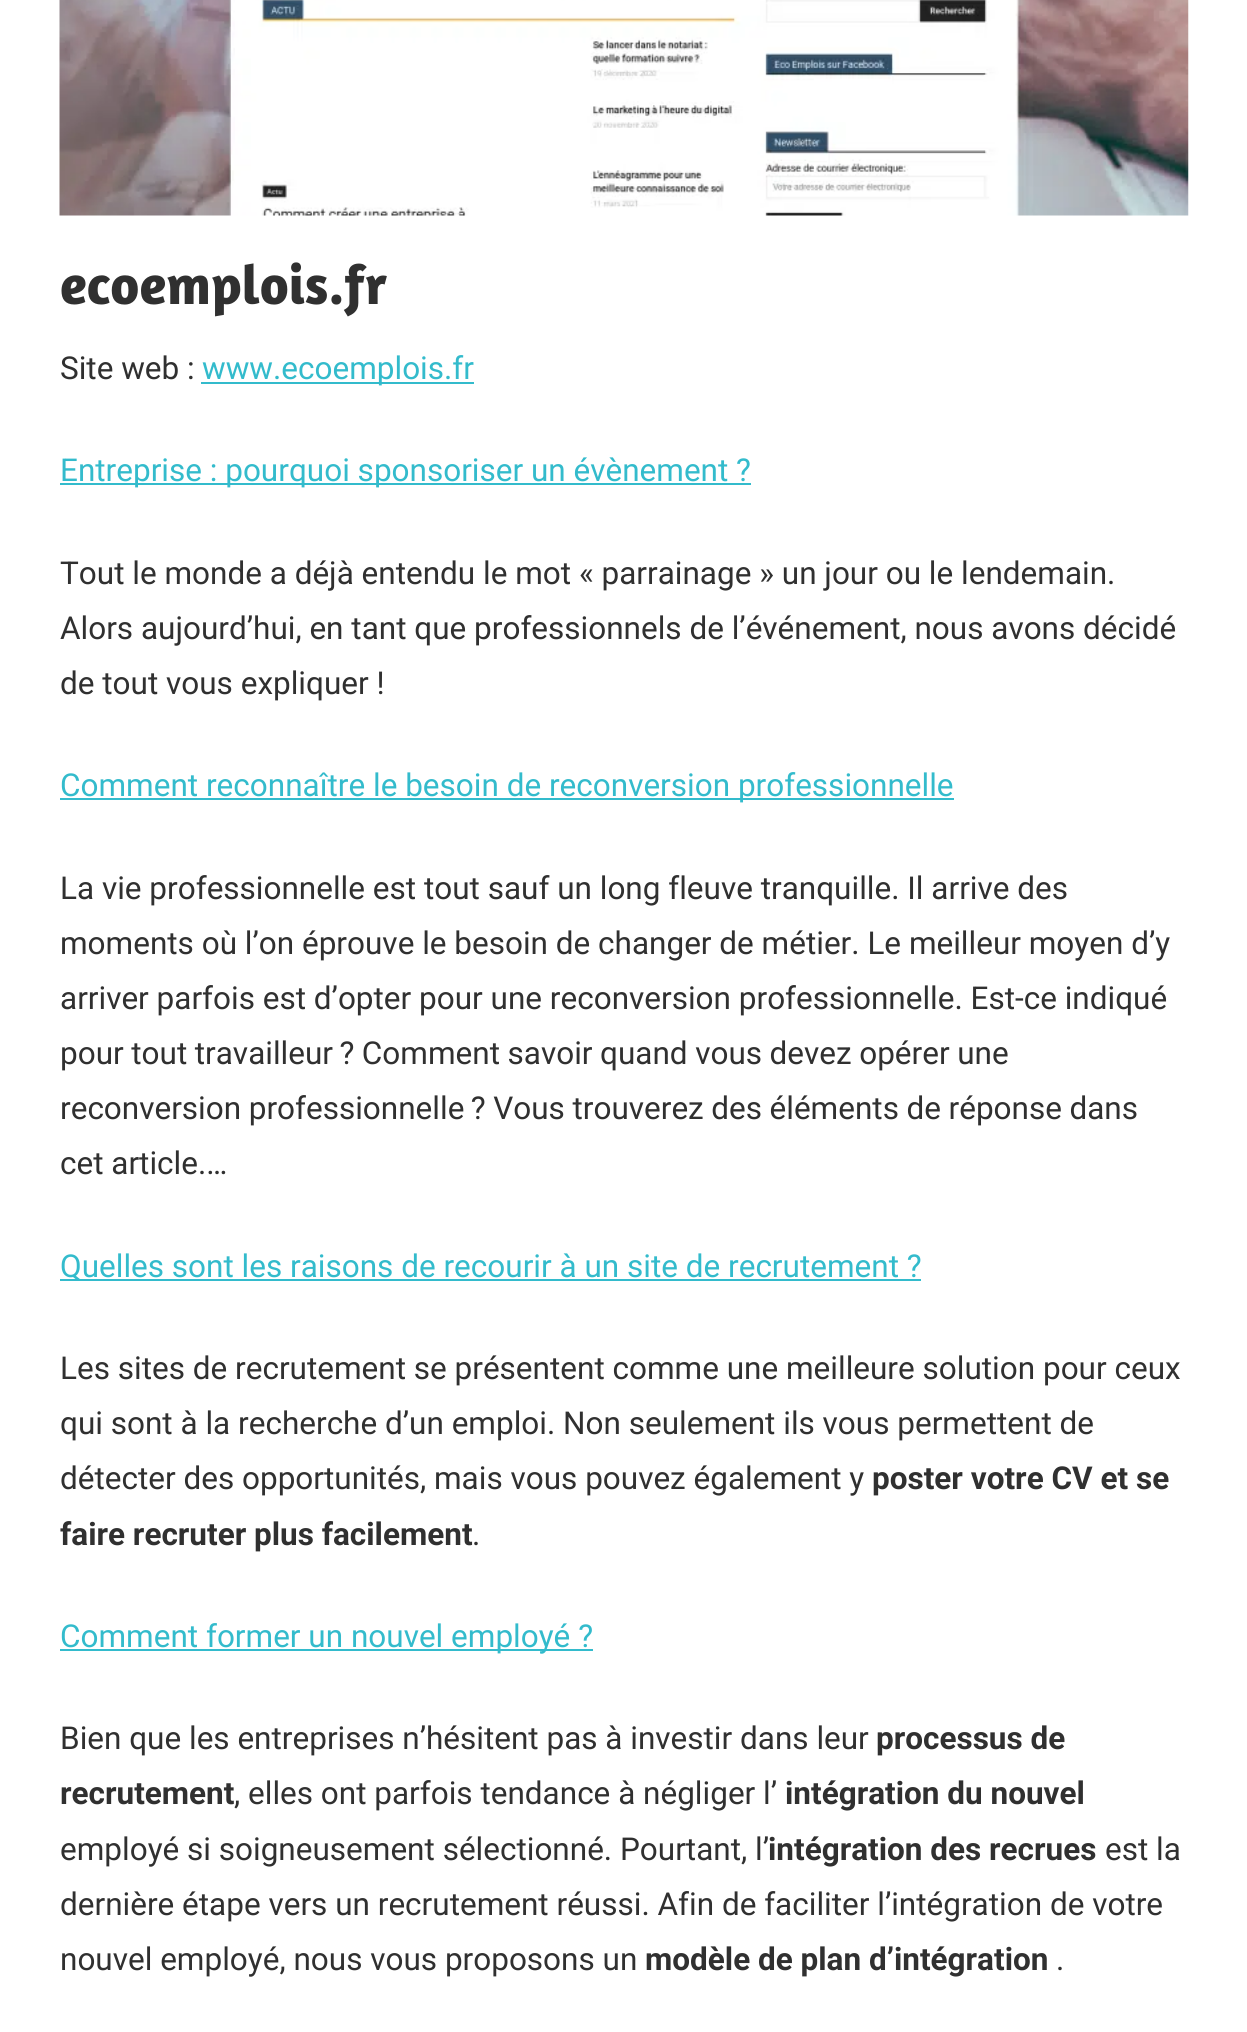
import math
import cairo


def use_color(cr, r, g, b):
  cr.set_source_rgb(r / 255, g / 255, b / 255)

def text(cr, x, y, s, family, size, color, bold=False, italic=False):
  cr.select_font_face(family, cairo.FONT_SLANT_ITALIC if italic else cairo.FONT_SLANT_NORMAL, cairo.FONT_WEIGHT_BOLD if bold else cairo.FONT_WEIGHT_NORMAL)
  cr.set_font_size(size)
  use_color(cr, *color)
  cr.move_to(x, y)
  cr.show_text(s)

def spaced_text(cr, x, y, s, letter, word):
  cr.move_to(x, y)
  for ch in s:
    cr.show_text(ch)
    cr.rel_move_to(letter + word * (ch == ' '), 0)

def box(cr, x, y, w, h, *color):
  use_color(cr, *color)
  cr.rectangle(x, y, w, h)
  cr.fill()

def picture(cr, path, x, y, w, h):
  cr.save()
  cr.set_source_surface(cairo.ImageSurface.create_from_png(path), x, y)
  cr.rectangle(x, y, w, h)
  cr.fill()
  cr.restore()

def draw(cr):
  use_color(cr, 255, 255, 255)
  cr.paint()
  picture(cr, "img_01.png", 59, 0, 1130, 216)
  box(cr, 201, 382, 273, 2, 51, 187, 204)
  box(cr, 60, 483, 691, 2, 51, 187, 204)
  box(cr, 60, 798, 894, 2, 51, 187, 204)
  box(cr, 60, 1279, 861, 2, 51, 187, 204)
  box(cr, 60, 1649, 533, 2, 51, 187, 204)
  text(cr, 60, 304, "ecoemplois.fr", "Amaranth", 56, (48, 48, 48), bold=True)
  text(cr, 60, 379, "Site web :", "Roboto", 31.5, (48, 48, 48))
  text(cr, 202, 379, "www.ecoemplois.fr", "Roboto", 31.5, (51, 187, 204))
  text(cr, 60, 481, "Entreprise : pourquoi sponsoriser un évènement ?", "Roboto", 31.5, (51, 187, 204))
  text(cr, 60, 584, "Tout le monde a déjà entendu le mot « parrainage » un jour ou le lendemain.", "Roboto", 31.5, (48, 48, 48))
  text(cr, 60, 639, "Alors aujourd’hui, en tant que professionnels de l’événement, nous avons décidé", "Roboto", 31.5, (48, 48, 48))
  text(cr, 60, 694, "de tout vous expliquer !", "Roboto", 31.5, (48, 48, 48))
  text(cr, 60, 796, "Comment reconnaître le besoin de reconversion professionnelle", "Roboto", 31.5, (51, 187, 204))
  text(cr, 60, 899, "La vie professionnelle est tout sauf un long fleuve tranquille. Il arrive des", "Roboto", 31.5, (48, 48, 48))
  text(cr, 60, 954, "moments où l’on éprouve le besoin de changer de métier. Le meilleur moyen d’y", "Roboto", 31.5, (48, 48, 48))
  text(cr, 60, 1009, "arriver parfois est d’opter pour une reconversion professionnelle. Est-ce indiqué", "Roboto", 31.5, (48, 48, 48))
  spaced_text(cr, 60, 1064, "pour tout travailleur ? Comment savoir quand vous devez opérer une", 0, -0.25)
  spaced_text(cr, 60, 1119, "reconversion professionnelle ? Vous trouverez des éléments de réponse dans", 0, -0.25)
  text(cr, 60, 1174, "cet article.…", "Roboto", 31.5, (48, 48, 48))
  text(cr, 60, 1277, "Quelles sont les raisons de recourir à un site de recrutement ?", "Roboto", 31.5, (51, 187, 204))
  text(cr, 60, 1379, "Les sites de recrutement se présentent comme une meilleure solution pour ceux", "Roboto", 31.5, (48, 48, 48))
  text(cr, 60, 1434, "qui sont à la recherche d’un emploi. Non seulement ils vous permettent de", "Roboto", 31.5, (48, 48, 48))
  text(cr, 60, 1489, "détecter des opportunités, mais vous pouvez également y", "Roboto", 31.5, (48, 48, 48))
  text(cr, 872, 1489, "poster votre CV et se", "Roboto", 31.5, (48, 48, 48), bold=True)
  text(cr, 60, 1545, "faire recruter plus facilement", "Roboto", 31.5, (48, 48, 48), bold=True)
  text(cr, 472, 1545, ".", "Roboto", 31.5, (48, 48, 48))
  text(cr, 60, 1647, "Comment former un nouvel employé ?", "Roboto", 31.5, (51, 187, 204))
  text(cr, 60, 1749, "Bien que les entreprises n’hésitent pas à investir dans leur", "Roboto", 31.5, (48, 48, 48))
  text(cr, 876, 1749, "processus de", "Roboto", 31.5, (48, 48, 48), bold=True)
  text(cr, 60, 1804, "recrutement", "Roboto", 31.5, (48, 48, 48), bold=True)
  text(cr, 234, 1804, ", elles ont parfois tendance à négliger l’", "Roboto", 31.5, (48, 48, 48))
  text(cr, 785, 1804, "intégration du nouvel", "Roboto", 31.5, (48, 48, 48), bold=True)
  text(cr, 60, 1860, "employé si soigneusement sélectionné. Pourtant, l’", "Roboto", 31.5, (48, 48, 48))
  text(cr, 768, 1860, "intégration des recrues", "Roboto", 31.5, (48, 48, 48), bold=True)
  text(cr, 1105, 1860, "est la", "Roboto", 31.5, (48, 48, 48))
  text(cr, 60, 1915, "dernière étape vers un recrutement réussi. Afin de faciliter l’intégration de votre", "Roboto", 31.5, (48, 48, 48))
  text(cr, 60, 1970, "nouvel employé, nous vous proposons un", "Roboto", 31.5, (48, 48, 48))
  text(cr, 645, 1970, "modèle de plan d’intégration", "Roboto", 31.5, (48, 48, 48), bold=True)
  text(cr, 1056, 1970, ".", "Roboto", 31.5, (48, 48, 48))


surface = cairo.ImageSurface(cairo.FORMAT_RGB24, 1247, 2032)
cr = cairo.Context(surface)
options = cairo.FontOptions()
options.set_hint_metrics(cairo.HINT_METRICS_OFF)
options.set_hint_style(cairo.HINT_STYLE_NONE)
cr.set_font_options(options)
cr.set_miter_limit(4)
draw(cr)
surface.write_to_png("out.png")
